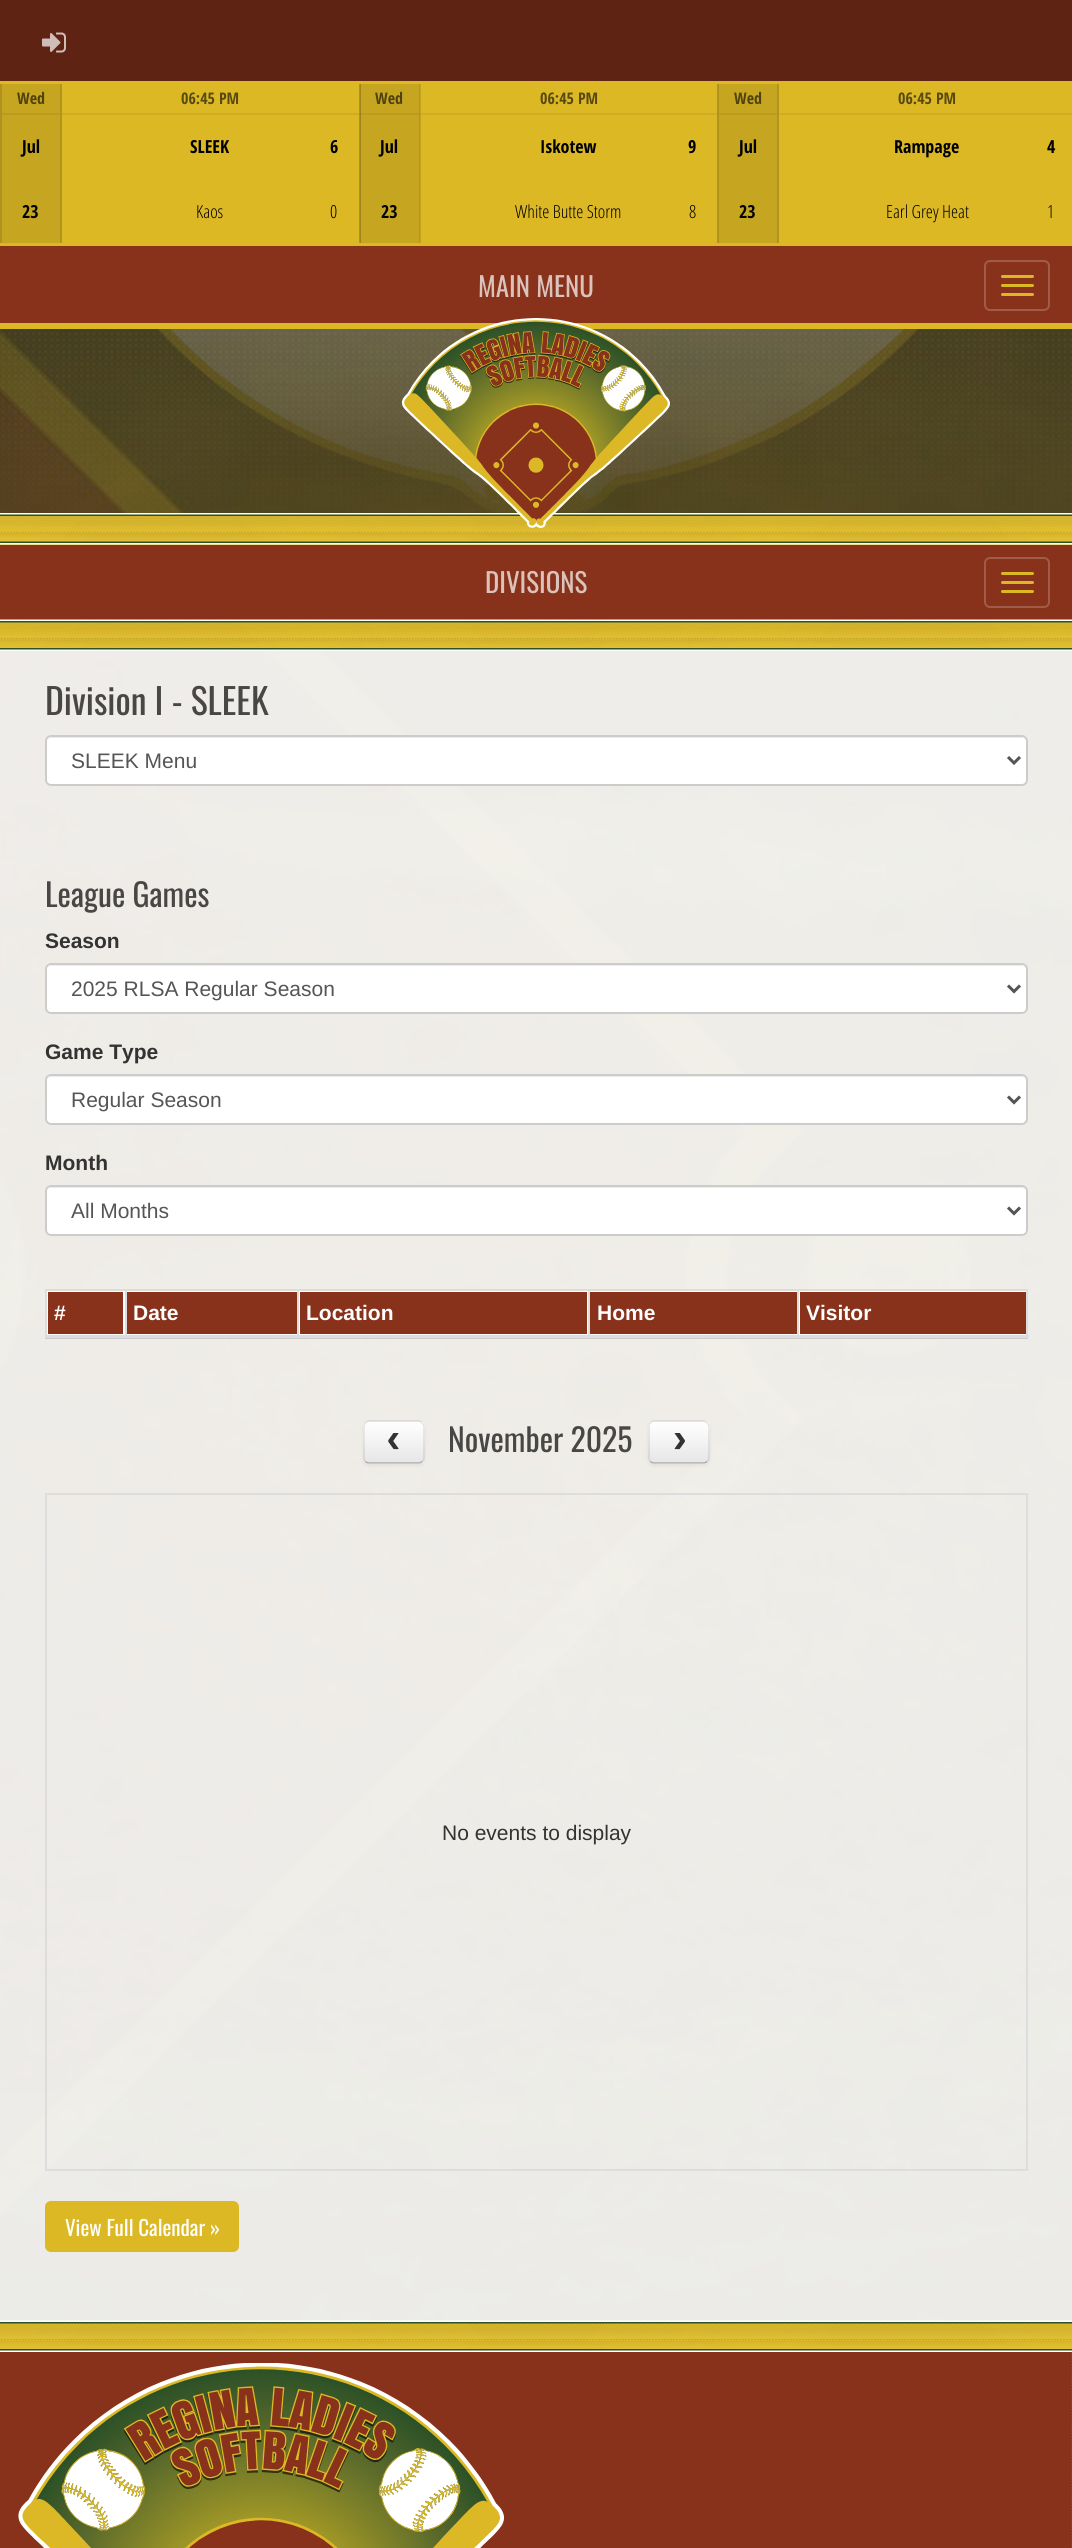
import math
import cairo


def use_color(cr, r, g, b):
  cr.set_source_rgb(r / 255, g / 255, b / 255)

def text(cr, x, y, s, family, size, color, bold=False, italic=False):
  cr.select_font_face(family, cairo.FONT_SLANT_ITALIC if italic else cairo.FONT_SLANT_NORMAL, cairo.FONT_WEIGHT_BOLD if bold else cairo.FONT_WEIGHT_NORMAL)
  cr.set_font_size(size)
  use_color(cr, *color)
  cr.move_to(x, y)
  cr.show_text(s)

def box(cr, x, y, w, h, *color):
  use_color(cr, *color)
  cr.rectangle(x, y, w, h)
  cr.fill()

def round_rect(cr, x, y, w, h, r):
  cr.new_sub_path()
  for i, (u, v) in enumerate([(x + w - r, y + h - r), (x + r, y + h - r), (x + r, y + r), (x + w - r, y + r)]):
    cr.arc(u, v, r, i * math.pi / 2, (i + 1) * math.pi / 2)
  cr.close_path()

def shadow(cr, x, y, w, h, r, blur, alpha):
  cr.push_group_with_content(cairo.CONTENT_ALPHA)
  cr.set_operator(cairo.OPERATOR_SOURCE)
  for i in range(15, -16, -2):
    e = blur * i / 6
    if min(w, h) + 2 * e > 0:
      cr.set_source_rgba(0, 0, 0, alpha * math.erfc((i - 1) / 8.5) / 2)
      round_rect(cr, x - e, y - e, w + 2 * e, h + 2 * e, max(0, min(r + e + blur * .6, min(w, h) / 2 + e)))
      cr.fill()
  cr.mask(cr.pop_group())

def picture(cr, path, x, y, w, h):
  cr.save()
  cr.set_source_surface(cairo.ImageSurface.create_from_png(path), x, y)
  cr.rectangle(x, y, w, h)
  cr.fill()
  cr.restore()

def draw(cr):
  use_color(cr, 255, 255, 255)
  cr.paint()
  box(cr, 0, 0, 1072, 81, 95, 35, 19)
  picture(cr, "img_01.png", 42, 32, 24, 21)
  box(cr, 0, 81, 1072, 165, 220, 184, 37)
  box(cr, 0, 246, 1072, 77, 136, 50, 27)
  box(cr, 0, 84, 2, 159, 176, 147, 30)
  box(cr, 2, 84, 58, 159, 198, 166, 33)
  box(cr, 60, 84, 2, 159, 178, 149, 30)
  box(cr, 2, 113, 58, 2, 186, 156, 31)
  box(cr, 62, 113, 297, 2, 207, 173, 35)
  box(cr, 359, 84, 2, 159, 176, 147, 30)
  cr.set_source_rgba(0, 0, 0, 0.1)
  cr.rectangle(360, 84, 60, 159)
  cr.fill()
  cr.rectangle(419, 84, 2, 159)
  cr.fill()
  cr.set_source_rgba(0, 0, 0, 0.06)
  cr.rectangle(360, 113, 59, 2)
  cr.fill()
  cr.rectangle(420, 113, 297, 2)
  cr.fill()
  box(cr, 717, 84, 2, 159, 176, 147, 30)
  box(cr, 719, 84, 58, 159, 198, 166, 33)
  box(cr, 777, 84, 2, 159, 178, 149, 30)
  box(cr, 719, 113, 58, 2, 186, 156, 31)
  box(cr, 779, 113, 293, 2, 207, 173, 35)
  box(cr, 0, 323, 1072, 6, 220, 184, 37)
  round_rect(cr, 985, 261, 64, 49, 5)
  use_color(cr, 160, 91, 73)
  cr.stroke()
  use_color(cr, 220, 184, 37)
  round_rect(cr, 1001, 275, 33, 3, 1.5)
  cr.fill()
  round_rect(cr, 1001, 284, 33, 3, 1.5)
  cr.fill()
  round_rect(cr, 1001, 293, 33, 3, 1.5)
  cr.fill()
  picture(cr, "img_03.png", 0, 329, 1072, 1992)
  picture(cr, "img_04.png", 0, 329, 1072, 184)
  box(cr, 0, 516, 1072, 29, 220, 184, 37)
  picture(cr, "img_05.png", 0, 513, 1072, 32)
  picture(cr, "img_02.png", 401, 318, 269, 210)
  box(cr, 0, 545, 1072, 75, 136, 50, 27)
  round_rect(cr, 985, 558, 64, 49, 5)
  use_color(cr, 160, 91, 73)
  cr.stroke()
  use_color(cr, 220, 184, 37)
  round_rect(cr, 1001, 572, 33, 3, 1.5)
  cr.fill()
  round_rect(cr, 1001, 581, 33, 3, 1.5)
  cr.fill()
  round_rect(cr, 1001, 590, 33, 3, 1.5)
  cr.fill()
  box(cr, 0, 622, 1072, 26, 220, 184, 37)
  picture(cr, "img_06.png", 0, 619, 1072, 32)
  cr.set_source_rgba(1, 1, 1, 0.9)
  cr.rectangle(0, 651, 1072, 1670)
  cr.fill()
  use_color(cr, 255, 255, 255)
  round_rect(cr, 45, 735, 983, 51, 6)
  cr.fill()
  use_color(cr, 236, 236, 236)
  cr.new_path()
  cr.move_to(51, 738)
  cr.line_to(1022, 738)
  cr.curve_to(1024, 738, 1026, 740, 1026, 742)
  cr.curve_to(1026, 739, 1024, 737, 1021, 737)
  cr.line_to(52, 737)
  cr.curve_to(50, 737, 49, 738, 48, 739)
  cr.close_path()
  cr.fill()
  round_rect(cr, 46, 736, 981, 49, 5)
  use_color(cr, 204, 204, 204)
  cr.stroke()
  cr.new_path()
  cr.move_to(1008, 757)
  cr.line_to(1014, 763)
  cr.line_to(1020, 757)
  use_color(cr, 85, 85, 85)
  cr.set_line_width(3)
  cr.stroke()
  use_color(cr, 255, 255, 255)
  round_rect(cr, 45, 963, 983, 51, 6)
  cr.fill()
  use_color(cr, 236, 236, 236)
  cr.new_path()
  cr.move_to(51, 966)
  cr.line_to(1022, 966)
  cr.curve_to(1024, 966, 1026, 968, 1026, 970)
  cr.curve_to(1026, 967, 1024, 965, 1021, 965)
  cr.line_to(52, 965)
  cr.curve_to(50, 965, 49, 966, 48, 967)
  cr.close_path()
  cr.fill()
  round_rect(cr, 46, 964, 981, 49, 5)
  use_color(cr, 204, 204, 204)
  cr.set_line_width(2)
  cr.stroke()
  cr.new_path()
  cr.move_to(1008, 985.5)
  cr.line_to(1014, 991.5)
  cr.line_to(1020, 985.5)
  use_color(cr, 85, 85, 85)
  cr.set_line_width(3)
  cr.stroke()
  use_color(cr, 255, 255, 255)
  round_rect(cr, 45, 1074, 983, 51, 6)
  cr.fill()
  use_color(cr, 236, 236, 236)
  cr.new_path()
  cr.move_to(51, 1077)
  cr.line_to(1022, 1077)
  cr.curve_to(1024, 1077, 1026, 1079, 1026, 1082)
  cr.line_to(1026, 1081)
  cr.curve_to(1026, 1078, 1024, 1076, 1021, 1076)
  cr.line_to(52, 1076)
  cr.curve_to(50, 1076, 49, 1077, 48, 1078)
  cr.close_path()
  cr.fill()
  round_rect(cr, 46, 1075, 981, 49, 5)
  use_color(cr, 204, 204, 204)
  cr.set_line_width(2)
  cr.stroke()
  cr.new_path()
  cr.move_to(1008, 1096.5)
  cr.line_to(1014, 1102.5)
  cr.line_to(1020, 1096.5)
  use_color(cr, 85, 85, 85)
  cr.set_line_width(3)
  cr.stroke()
  use_color(cr, 255, 255, 255)
  round_rect(cr, 45, 1185, 983, 51, 6)
  cr.fill()
  use_color(cr, 236, 236, 236)
  cr.new_path()
  cr.move_to(51, 1188)
  cr.line_to(1022, 1188)
  cr.curve_to(1024, 1188, 1026, 1190, 1026, 1192)
  cr.curve_to(1026, 1189, 1024, 1187, 1021, 1187)
  cr.line_to(52, 1187)
  cr.curve_to(50, 1187, 49, 1188, 48, 1189)
  cr.close_path()
  cr.fill()
  round_rect(cr, 46, 1186, 981, 49, 5)
  use_color(cr, 204, 204, 204)
  cr.set_line_width(2)
  cr.stroke()
  cr.new_path()
  cr.move_to(1008, 1207.5)
  cr.line_to(1014, 1213.5)
  cr.line_to(1020, 1207.5)
  use_color(cr, 85, 85, 85)
  cr.set_line_width(3)
  cr.stroke()
  cr.set_source_rgba(1, 1, 1, 0.9)
  cr.rectangle(47, 1291, 979, 44)
  cr.fill()
  box(cr, 45, 1338, 983, 1, 204, 204, 204)
  box(cr, 48, 1292, 75, 42, 136, 50, 27)
  box(cr, 797, 1289, 231, 2, 221, 221, 221)
  box(cr, 797, 1289, 2, 49, 221, 221, 221)
  box(cr, 588, 1289, 210, 2, 221, 221, 221)
  box(cr, 588, 1289, 2, 49, 221, 221, 221)
  box(cr, 297, 1289, 293, 2, 221, 221, 221)
  box(cr, 297, 1289, 2, 49, 221, 221, 221)
  box(cr, 125, 1289, 174, 2, 221, 221, 221)
  box(cr, 125, 1289, 2, 49, 221, 221, 221)
  box(cr, 45, 1289, 81, 2, 221, 221, 221)
  box(cr, 45, 1289, 2, 49, 221, 221, 221)
  box(cr, 127, 1292, 170, 42, 136, 50, 27)
  box(cr, 300, 1292, 287, 42, 136, 50, 27)
  box(cr, 590, 1292, 207, 42, 136, 50, 27)
  box(cr, 800, 1292, 226, 42, 136, 50, 27)
  box(cr, 1026, 1289, 2, 49, 221, 221, 221)
  box(cr, 45, 1335, 984, 3, 221, 221, 221)
  use_color(cr, 0, 0, 0)
  shadow(cr, 363, 1422, 62, 44, 6, 1.5, 0.05)
  use_color(cr, 245, 245, 245)
  round_rect(cr, 363, 1421, 62, 43, 6)
  cr.fill()
  cr.save()
  round_rect(cr, 363, 1421, 62, 43, 6)
  cr.clip()
  gradient = cairo.LinearGradient(394, 1422, 394, 1463)
  gradient.add_color_stop_rgba(0, 1, 1, 1, 1)
  gradient.add_color_stop_rgba(1, 0.902, 0.902, 0.902, 1)
  cr.set_source(gradient)
  cr.rectangle(363, 1422, 62, 41)
  cr.fill()
  cr.restore()
  cr.new_path()
  cr.move_to(422, 1461.5)
  cr.curve_to(421, 1462.5, 420, 1463, 418.5, 1463)
  cr.line_to(369, 1463)
  cr.curve_to(367.5, 1463, 366.5, 1462.5, 365.5, 1461.5)
  cr.set_source_rgba(0, 0, 0, 0.25)
  cr.set_line_width(1.5)
  cr.stroke()
  cr.new_path()
  cr.move_to(365.5, 1461.5)
  cr.curve_to(364.5, 1460.5, 364, 1459.5, 364, 1458)
  cr.line_to(364, 1426.5)
  cr.curve_to(364, 1425, 364.5, 1424, 365.5, 1423)
  cr.curve_to(366.5, 1422, 367.5, 1421, 369, 1421)
  cr.line_to(418.5, 1421)
  cr.curve_to(420, 1421, 421, 1422, 422, 1423)
  cr.curve_to(423, 1424, 424, 1425, 424, 1426.5)
  cr.line_to(424, 1458)
  cr.curve_to(424, 1459.5, 423, 1460.5, 422, 1461.5)
  cr.set_source_rgba(0, 0, 0, 0.1)
  cr.stroke()
  use_color(cr, 0, 0, 0)
  shadow(cr, 648, 1422, 62, 44, 6, 1.5, 0.05)
  use_color(cr, 245, 245, 245)
  round_rect(cr, 648, 1421, 62, 43, 6)
  cr.fill()
  cr.save()
  round_rect(cr, 648, 1421, 62, 43, 6)
  cr.clip()
  gradient = cairo.LinearGradient(679, 1422, 679, 1463)
  gradient.add_color_stop_rgba(0, 1, 1, 1, 1)
  gradient.add_color_stop_rgba(1, 0.902, 0.902, 0.902, 1)
  cr.set_source(gradient)
  cr.rectangle(648, 1422, 62, 41)
  cr.fill()
  cr.restore()
  cr.new_path()
  cr.move_to(707, 1461.5)
  cr.curve_to(706, 1462.5, 705, 1463, 703.5, 1463)
  cr.line_to(654, 1463)
  cr.curve_to(652.5, 1463, 651.5, 1462.5, 650.5, 1461.5)
  cr.set_source_rgba(0, 0, 0, 0.25)
  cr.stroke()
  cr.new_path()
  cr.move_to(650.5, 1461.5)
  cr.curve_to(649.5, 1460.5, 649, 1459.5, 649, 1458)
  cr.line_to(649, 1426.5)
  cr.curve_to(649, 1425, 649.5, 1424, 650.5, 1423)
  cr.curve_to(651.5, 1422, 652.5, 1421, 654, 1421)
  cr.line_to(703.5, 1421)
  cr.curve_to(705, 1421, 706, 1422, 707, 1423)
  cr.curve_to(708, 1424, 709, 1425, 709, 1426.5)
  cr.line_to(709, 1458)
  cr.curve_to(709, 1459.5, 708, 1460.5, 707, 1461.5)
  cr.set_source_rgba(0, 0, 0, 0.1)
  cr.stroke()
  cr.rectangle(46, 1494, 981, 676)
  use_color(cr, 221, 221, 221)
  cr.set_line_width(2)
  cr.stroke()
  use_color(cr, 220, 184, 37)
  round_rect(cr, 45, 2201, 194, 51, 6)
  cr.fill()
  box(cr, 0, 2323, 1072, 26, 220, 184, 37)
  picture(cr, "img_07.png", 0, 2320, 1072, 32)
  box(cr, 0, 2352, 1072, 196, 136, 50, 27)
  cr.new_path()
  cr.move_to(1072, 2352)
  cr.line_to(1072, 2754)
  use_color(cr, 148, 71, 50)
  cr.set_line_width(1.5)
  cr.set_dash([1.5, 1.5])
  cr.stroke()
  picture(cr, "img_08.png", 18, 2363, 487, 185)
  text(cr, 17, 104, "Wed", "Open Sans Condensed", 16, (79, 66, 13), bold=True)
  text(cr, 22, 153, "Jul", "Open Sans Condensed", 18, (0, 0, 0), bold=True)
  text(cr, 22, 218, "23", "Open Sans Condensed", 18, (0, 0, 0), bold=True)
  text(cr, 181, 104, "06:45 PM", "Open Sans Condensed", 16, (88, 74, 15), bold=True)
  text(cr, 190, 153, "SLEEK", "Open Sans Condensed", 18, (0, 0, 0), bold=True)
  text(cr, 196, 218, "Kaos", "Open Sans Condensed Light", 18, (0, 0, 0))
  text(cr, 330, 153, "6", "Open Sans Condensed", 18, (0, 0, 0), bold=True)
  text(cr, 330, 218, "0", "Open Sans Condensed Light", 18, (0, 0, 0))
  text(cr, 375, 104, "Wed", "Open Sans Condensed", 16, (79, 66, 13), bold=True)
  text(cr, 380, 153, "Jul", "Open Sans Condensed", 18, (0, 0, 0), bold=True)
  text(cr, 381, 218, "23", "Open Sans Condensed", 18, (0, 0, 0), bold=True)
  text(cr, 540, 104, "06:45 PM", "Open Sans Condensed", 16, (88, 74, 15), bold=True)
  text(cr, 540, 153, "Iskotew", "Open Sans Condensed", 18, (0, 0, 0), bold=True)
  text(cr, 515, 218, "White Butte Storm", "Open Sans Condensed Light", 18, (0, 0, 0))
  text(cr, 688, 153, "9", "Open Sans Condensed", 18, (0, 0, 0), bold=True)
  text(cr, 689, 218, "8", "Open Sans Condensed Light", 18, (0, 0, 0))
  text(cr, 734, 104, "Wed", "Open Sans Condensed", 16, (79, 66, 13), bold=True)
  text(cr, 739, 153, "Jul", "Open Sans Condensed", 18, (0, 0, 0), bold=True)
  text(cr, 739, 218, "23", "Open Sans Condensed", 18, (0, 0, 0), bold=True)
  text(cr, 898, 104, "06:45 PM", "Open Sans Condensed", 16, (88, 74, 15), bold=True)
  text(cr, 894, 153, "Rampage", "Open Sans Condensed", 18, (0, 0, 0), bold=True)
  text(cr, 886, 218, "Earl Grey Heat", "Open Sans Condensed Light", 18, (0, 0, 0))
  text(cr, 1047, 153, "4", "Open Sans Condensed", 18, (0, 0, 0), bold=True)
  text(cr, 1047, 218, "1", "Open Sans Condensed Light", 18, (0, 0, 0))
  text(cr, 478, 297, "MAIN MENU", "Oswald", 27, (219, 194, 187))
  text(cr, 485, 593, "DIVISIONS", "Oswald", 27, (219, 194, 187))
  text(cr, 45, 715, "Division I - SLEEK", "Oswald", 35.75, (72, 71, 70))
  text(cr, 71, 768, "SLEEK Menu", "Liberation Sans", 21, (85, 85, 85))
  text(cr, 45, 907, "League Games", "Oswald", 31.75, (72, 71, 70))
  text(cr, 45, 948, "Season", "Liberation Sans", 21, (51, 51, 51), bold=True)
  text(cr, 71, 996, "2025 RLSA Regular Season", "Liberation Sans", 21, (85, 85, 85))
  text(cr, 45, 1059, "Game Type", "Liberation Sans", 21, (51, 51, 51), bold=True)
  text(cr, 71, 1107, "Regular Season", "Liberation Sans", 21, (85, 85, 85))
  text(cr, 45, 1170, "Month", "Liberation Sans", 21, (51, 51, 51), bold=True)
  text(cr, 71, 1218, "All Months", "Liberation Sans", 21, (85, 85, 85))
  text(cr, 54, 1320, "#", "Liberation Sans", 21, (255, 255, 255), bold=True)
  text(cr, 133, 1320, "Date", "Liberation Sans", 21, (255, 255, 255), bold=True)
  text(cr, 306, 1320, "Location", "Liberation Sans", 21, (255, 255, 255), bold=True)
  text(cr, 597, 1320, "Home", "Liberation Sans", 21, (255, 255, 255), bold=True)
  text(cr, 806, 1320, "Visitor", "Liberation Sans", 21, (255, 255, 255), bold=True)
  cr.save()
  cr.rectangle(381, 1433, 26, 21)
  cr.clip()
  text(cr, 381, 1452, "‹", "Liberation Mono", 42, (51, 51, 51), bold=True)
  cr.restore()
  text(cr, 448, 1452, "November 2025", "Oswald", 31.75, (72, 71, 70))
  cr.save()
  cr.rectangle(666, 1433, 26, 21)
  cr.clip()
  text(cr, 667, 1452, "›", "Liberation Mono", 42, (51, 51, 51), bold=True)
  cr.restore()
  text(cr, 442, 1840, "No events to display", "Liberation Sans", 21, (51, 51, 51))
  text(cr, 65, 2236, "View Full Calendar »", "Oswald", 21, (255, 255, 255))


surface = cairo.ImageSurface(cairo.FORMAT_RGB24, 1072, 2548)
cr = cairo.Context(surface)
options = cairo.FontOptions()
options.set_hint_metrics(cairo.HINT_METRICS_OFF)
options.set_hint_style(cairo.HINT_STYLE_NONE)
cr.set_font_options(options)
cr.set_miter_limit(4)
draw(cr)
surface.write_to_png("out.png")
